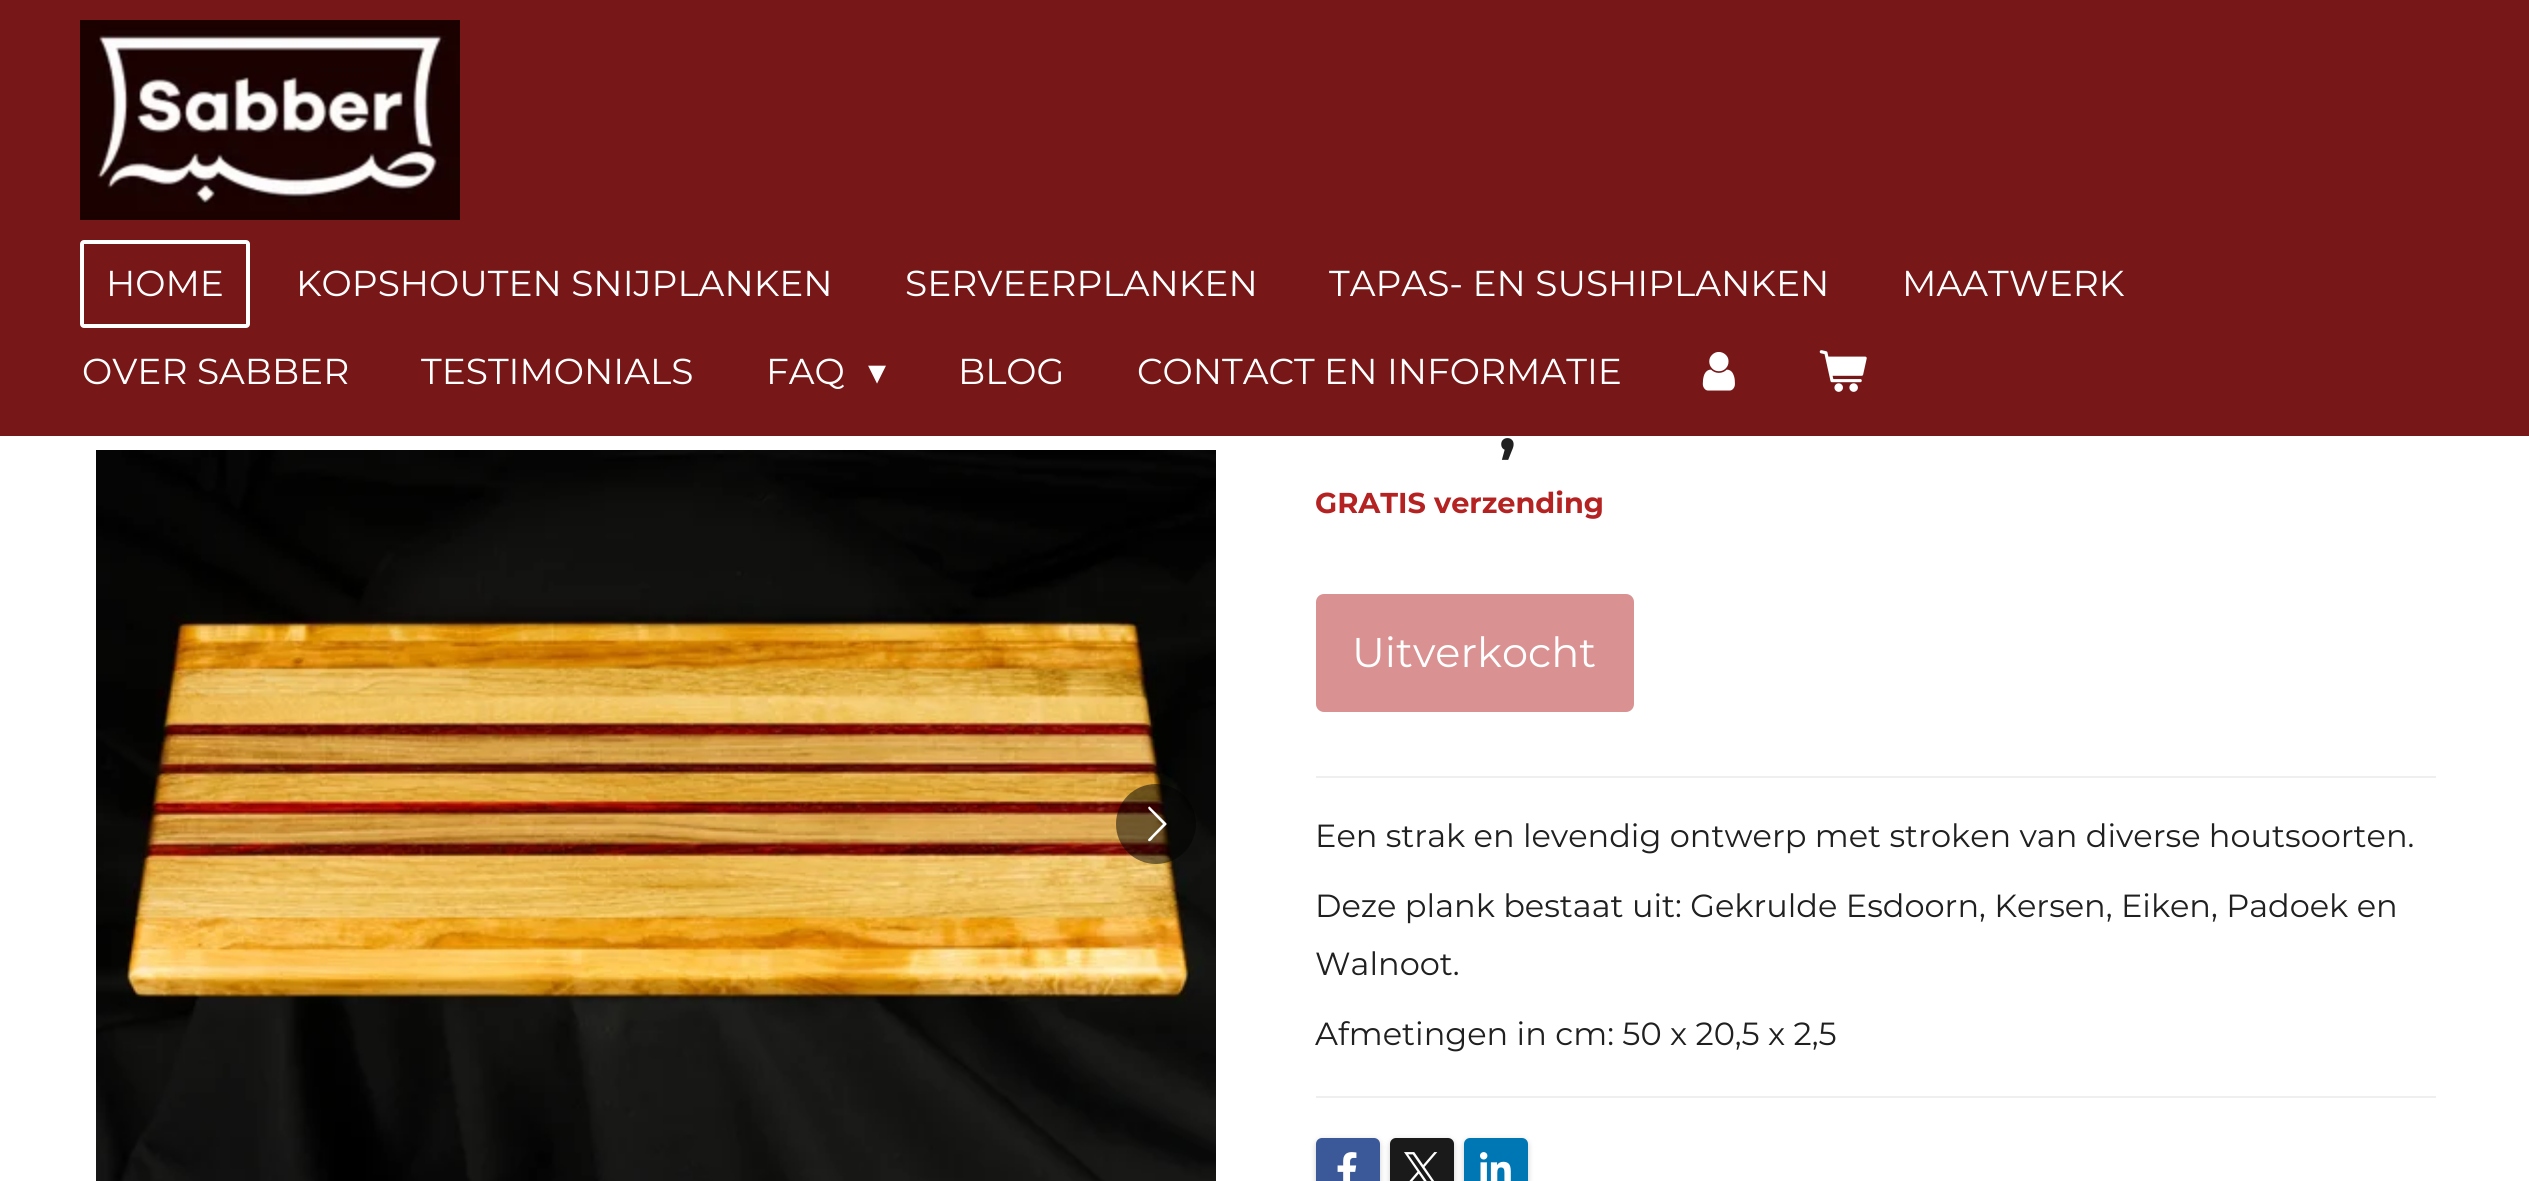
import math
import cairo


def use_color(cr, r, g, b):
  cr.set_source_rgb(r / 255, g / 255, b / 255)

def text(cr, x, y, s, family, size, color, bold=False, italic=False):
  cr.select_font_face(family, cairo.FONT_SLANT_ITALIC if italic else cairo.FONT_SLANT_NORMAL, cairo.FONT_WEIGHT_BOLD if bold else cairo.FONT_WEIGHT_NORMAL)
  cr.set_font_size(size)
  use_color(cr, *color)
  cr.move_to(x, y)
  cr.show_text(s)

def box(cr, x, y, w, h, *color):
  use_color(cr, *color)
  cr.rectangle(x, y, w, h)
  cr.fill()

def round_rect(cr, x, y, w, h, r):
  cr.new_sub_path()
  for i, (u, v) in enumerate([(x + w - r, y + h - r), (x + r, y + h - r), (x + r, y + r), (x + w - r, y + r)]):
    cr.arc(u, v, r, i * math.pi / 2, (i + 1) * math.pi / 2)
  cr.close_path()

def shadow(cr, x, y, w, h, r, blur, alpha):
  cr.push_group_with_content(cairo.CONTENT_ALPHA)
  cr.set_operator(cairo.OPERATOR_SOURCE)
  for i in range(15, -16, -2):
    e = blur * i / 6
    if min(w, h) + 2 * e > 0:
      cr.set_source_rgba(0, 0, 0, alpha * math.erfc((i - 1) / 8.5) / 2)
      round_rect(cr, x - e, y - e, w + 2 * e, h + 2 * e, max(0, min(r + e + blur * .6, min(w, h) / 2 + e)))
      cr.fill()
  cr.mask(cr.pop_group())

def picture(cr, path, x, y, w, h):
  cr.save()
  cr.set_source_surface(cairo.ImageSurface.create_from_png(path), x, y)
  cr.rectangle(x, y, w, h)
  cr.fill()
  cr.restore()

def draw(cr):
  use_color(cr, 255, 255, 255)
  cr.paint()
  box(cr, 0, 0, 2529, 436, 120, 23, 23)
  picture(cr, "img_01.png", 80, 20, 380, 200)
  round_rect(cr, 82, 242, 166, 84, 2)
  use_color(cr, 255, 255, 255)
  cr.set_line_width(4)
  cr.stroke()
  picture(cr, "img_02.png", 1702, 351, 33, 40)
  picture(cr, "img_03.png", 1819, 350, 48, 42)
  picture(cr, "img_04.png", 96, 450, 1120, 731)
  cr.set_source_rgba(0, 0, 0, 0.5)
  cr.arc(1156, 824, 40, 0, 2 * math.pi)
  cr.fill()
  use_color(cr, 255, 255, 255)
  cr.new_path()
  cr.move_to(1148.5, 839)
  cr.line_to(1163, 824)
  cr.line_to(1151, 811.5)
  cr.curve_to(1150.5, 811, 1146, 807.5, 1149.5, 806.5)
  cr.line_to(1150, 807)
  cr.line_to(1166.5, 823.5)
  cr.line_to(1166.5, 824.5)
  cr.line_to(1153, 838)
  cr.curve_to(1153, 838.5, 1149, 843.5, 1148, 840)
  cr.close_path()
  cr.fill()
  use_color(cr, 218, 145, 145)
  round_rect(cr, 1316, 594, 318, 118, 8)
  cr.fill()
  box(cr, 1316, 776, 1120, 2, 239, 239, 239)
  box(cr, 1316, 1096, 1120, 2, 239, 239, 239)
  use_color(cr, 0, 0, 0)
  shadow(cr, 1316, 1140, 64, 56, 6, 3, 0.2)
  use_color(cr, 59, 89, 152)
  round_rect(cr, 1316, 1138, 64, 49, 6)
  cr.fill()
  picture(cr, "img_05.png", 1337, 1152, 20, 29)
  use_color(cr, 0, 0, 0)
  shadow(cr, 1390, 1140, 64, 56, 6, 3, 0.2)
  use_color(cr, 26, 26, 26)
  round_rect(cr, 1390, 1138, 64, 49, 6)
  cr.fill()
  picture(cr, "img_06.png", 1404, 1152, 34, 29)
  use_color(cr, 0, 0, 0)
  shadow(cr, 1464, 1140, 64, 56, 6, 3, 0.2)
  use_color(cr, 0, 119, 181)
  round_rect(cr, 1464, 1138, 64, 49, 6)
  cr.fill()
  picture(cr, "img_07.png", 1480, 1152, 31, 29)
  text(cr, 106, 296, "HOME", "Montserrat", 36, (255, 255, 255))
  text(cr, 296, 296, "KOPSHOUTEN SNIJPLANKEN", "Montserrat", 36, (255, 255, 255))
  text(cr, 905, 296, "SERVEERPLANKEN", "Montserrat", 36, (255, 255, 255))
  text(cr, 1329, 296, "TAPAS- EN SUSHIPLANKEN", "Montserrat", 36, (255, 255, 255))
  text(cr, 1902, 296, "MAATWERK", "Montserrat", 36, (255, 255, 255))
  text(cr, 82, 384, "OVER SABBER", "Montserrat", 36, (255, 255, 255))
  text(cr, 421, 384, "TESTIMONIALS", "Montserrat", 36, (255, 255, 255))
  text(cr, 766, 384, "FAQ", "Montserrat", 36, (255, 255, 255))
  text(cr, 868, 384, "▾", "DejaVu Sans", 36, (255, 255, 255))
  text(cr, 958, 384, "BLOG", "Montserrat", 36, (255, 255, 255))
  text(cr, 1137, 384, "CONTACT EN INFORMATIE", "Montserrat", 36, (255, 255, 255))
  text(cr, 1499, 450, ",", "Montserrat", 64, (32, 32, 32), bold=True)
  text(cr, 1315, 513, "GRATIS verzending", "Montserrat", 28.75, (181, 34, 34), bold=True)
  text(cr, 1352, 667, "Uitverkocht", "Montserrat", 41.5, (255, 255, 255))
  text(cr, 1315, 847, "Een strak en levendig ontwerp met stroken van diverse houtsoorten.", "Montserrat", 32, (32, 32, 32))
  text(cr, 1315, 917, "Deze plank bestaat uit: Gekrulde Esdoorn, Kersen, Eiken, Padoek en", "Montserrat", 32, (32, 32, 32))
  text(cr, 1315, 975, "Walnoot.", "Montserrat", 32, (32, 32, 32))
  text(cr, 1315, 1045, "Afmetingen in cm: 50 x 20,5 x 2,5", "Montserrat", 32, (32, 32, 32))


surface = cairo.ImageSurface(cairo.FORMAT_RGB24, 2529, 1181)
cr = cairo.Context(surface)
options = cairo.FontOptions()
options.set_hint_metrics(cairo.HINT_METRICS_OFF)
options.set_hint_style(cairo.HINT_STYLE_NONE)
cr.set_font_options(options)
cr.set_miter_limit(4)
draw(cr)
surface.write_to_png("out.png")
